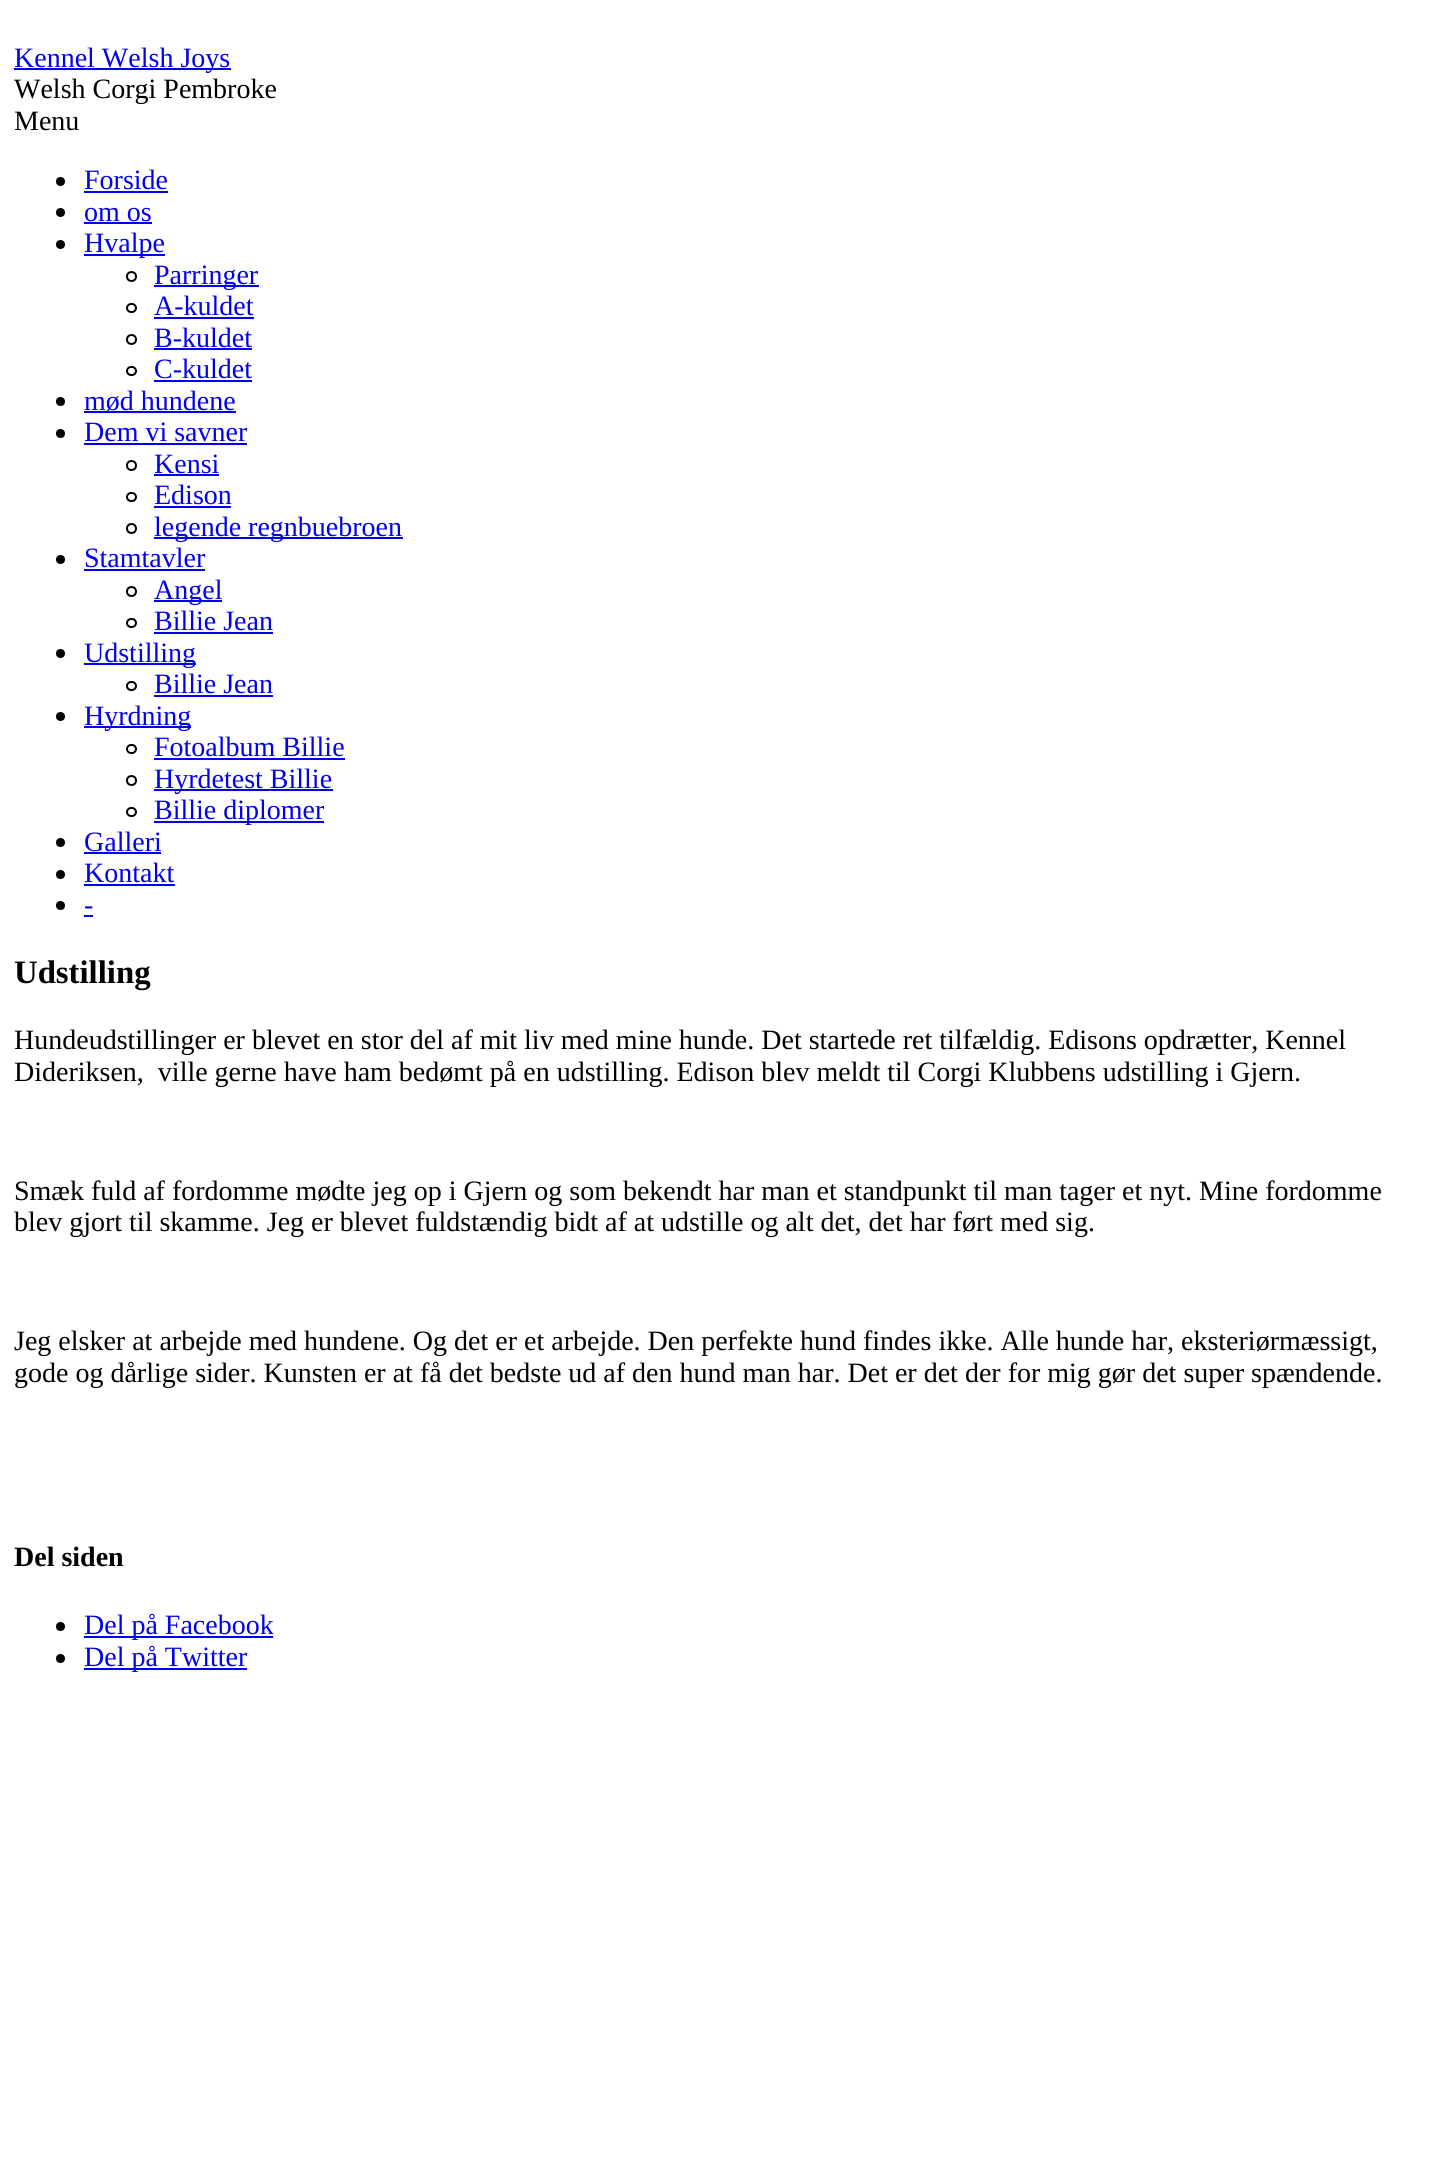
import math
import cairo


def use_color(cr, r, g, b):
  cr.set_source_rgb(r / 255, g / 255, b / 255)

def text(cr, x, y, s, family, size, color, bold=False, italic=False):
  cr.select_font_face(family, cairo.FONT_SLANT_ITALIC if italic else cairo.FONT_SLANT_NORMAL, cairo.FONT_WEIGHT_BOLD if bold else cairo.FONT_WEIGHT_NORMAL)
  cr.set_font_size(size)
  use_color(cr, *color)
  cr.move_to(x, y)
  cr.show_text(s)

def box(cr, x, y, w, h, *color):
  use_color(cr, *color)
  cr.rectangle(x, y, w, h)
  cr.fill()

def round_rect(cr, x, y, w, h, r):
  cr.new_sub_path()
  for i, (u, v) in enumerate([(x + w - r, y + h - r), (x + r, y + h - r), (x + r, y + r), (x + w - r, y + r)]):
    cr.arc(u, v, r, i * math.pi / 2, (i + 1) * math.pi / 2)
  cr.close_path()

def draw(cr):
  use_color(cr, 255, 255, 255)
  cr.paint()
  box(cr, 14, 68, 217, 2, 0, 0, 238)
  use_color(cr, 0, 0, 0)
  cr.arc(60.5, 181.5, 4.5, 0, 2 * math.pi)
  cr.fill()
  box(cr, 84, 191, 84, 2, 0, 0, 238)
  use_color(cr, 0, 0, 0)
  cr.arc(60.5, 212.5, 4.5, 0, 2 * math.pi)
  cr.fill()
  box(cr, 84, 222, 68, 2, 0, 0, 238)
  use_color(cr, 0, 0, 0)
  cr.arc(60.5, 244.5, 4.5, 0, 2 * math.pi)
  cr.fill()
  box(cr, 84, 254, 81, 2, 0, 0, 238)
  cr.arc(131.5, 276.5, 4.5, 0, 2 * math.pi)
  use_color(cr, 0, 0, 0)
  cr.stroke()
  box(cr, 154, 285, 105, 2, 0, 0, 238)
  round_rect(cr, 127, 304, 9, 8, 4)
  use_color(cr, 0, 0, 0)
  cr.stroke()
  box(cr, 154, 317, 100, 2, 0, 0, 238)
  cr.arc(131.5, 339.5, 4.5, 0, 2 * math.pi)
  use_color(cr, 0, 0, 0)
  cr.stroke()
  box(cr, 154, 348, 98, 2, 0, 0, 238)
  round_rect(cr, 127, 367, 9, 8, 4)
  use_color(cr, 0, 0, 0)
  cr.stroke()
  box(cr, 154, 380, 98, 2, 0, 0, 238)
  use_color(cr, 0, 0, 0)
  cr.arc(60.5, 401.5, 4.5, 0, 2 * math.pi)
  cr.fill()
  box(cr, 84, 411, 152, 2, 0, 0, 238)
  use_color(cr, 0, 0, 0)
  cr.arc(60.5, 433.5, 4.5, 0, 2 * math.pi)
  cr.fill()
  box(cr, 84, 443, 163, 2, 0, 0, 238)
  cr.arc(131.5, 465.5, 4.5, 0, 2 * math.pi)
  use_color(cr, 0, 0, 0)
  cr.stroke()
  box(cr, 154, 474, 65, 2, 0, 0, 238)
  round_rect(cr, 127, 493, 9, 8, 4)
  use_color(cr, 0, 0, 0)
  cr.stroke()
  box(cr, 154, 506, 77, 2, 0, 0, 238)
  cr.arc(131.5, 528.5, 4.5, 0, 2 * math.pi)
  use_color(cr, 0, 0, 0)
  cr.stroke()
  box(cr, 154, 537, 249, 2, 0, 0, 238)
  use_color(cr, 0, 0, 0)
  cr.arc(60.5, 559.5, 4.5, 0, 2 * math.pi)
  cr.fill()
  box(cr, 84, 569, 121, 2, 0, 0, 238)
  cr.arc(131.5, 591.5, 4.5, 0, 2 * math.pi)
  use_color(cr, 0, 0, 0)
  cr.stroke()
  box(cr, 154, 600, 68, 2, 0, 0, 238)
  round_rect(cr, 127, 619, 9, 8, 4)
  use_color(cr, 0, 0, 0)
  cr.stroke()
  box(cr, 154, 632, 119, 2, 0, 0, 238)
  use_color(cr, 0, 0, 0)
  cr.arc(60.5, 653.5, 4.5, 0, 2 * math.pi)
  cr.fill()
  box(cr, 84, 663, 112, 2, 0, 0, 238)
  round_rect(cr, 127, 682, 9, 8, 4)
  use_color(cr, 0, 0, 0)
  cr.stroke()
  box(cr, 154, 695, 119, 2, 0, 0, 238)
  use_color(cr, 0, 0, 0)
  cr.arc(60.5, 716.5, 4.5, 0, 2 * math.pi)
  cr.fill()
  box(cr, 84, 726, 107, 2, 0, 0, 238)
  round_rect(cr, 127, 745, 9, 8, 4)
  use_color(cr, 0, 0, 0)
  cr.stroke()
  box(cr, 154, 758, 191, 2, 0, 0, 238)
  cr.arc(131.5, 780.5, 4.5, 0, 2 * math.pi)
  use_color(cr, 0, 0, 0)
  cr.stroke()
  box(cr, 154, 789, 179, 2, 0, 0, 238)
  round_rect(cr, 127, 808, 9, 8, 4)
  use_color(cr, 0, 0, 0)
  cr.stroke()
  box(cr, 154, 821, 170, 2, 0, 0, 238)
  use_color(cr, 0, 0, 0)
  cr.arc(60.5, 842.5, 4.5, 0, 2 * math.pi)
  cr.fill()
  box(cr, 84, 852, 77, 2, 0, 0, 238)
  use_color(cr, 0, 0, 0)
  cr.arc(60.5, 874.5, 4.5, 0, 2 * math.pi)
  cr.fill()
  box(cr, 84, 884, 91, 2, 0, 0, 238)
  use_color(cr, 0, 0, 0)
  cr.arc(60.5, 905.5, 4.5, 0, 2 * math.pi)
  cr.fill()
  box(cr, 84, 915, 9, 2, 0, 0, 238)
  use_color(cr, 0, 0, 0)
  cr.arc(60.5, 1626.5, 4.5, 0, 2 * math.pi)
  cr.fill()
  box(cr, 84, 1636, 189, 2, 0, 0, 238)
  use_color(cr, 0, 0, 0)
  cr.arc(60.5, 1658.5, 4.5, 0, 2 * math.pi)
  cr.fill()
  box(cr, 84, 1668, 163, 2, 0, 0, 238)
  text(cr, 14, 67, "Kennel Welsh Joys", "Liberation Serif", 28, (0, 0, 238))
  text(cr, 14, 98, "Welsh Corgi Pembroke", "Liberation Serif", 28, (0, 0, 0))
  text(cr, 14, 130, "Menu", "Liberation Serif", 28, (0, 0, 0))
  text(cr, 84, 189, "Forside", "Liberation Serif", 28, (0, 0, 238))
  text(cr, 84, 221, "om os", "Liberation Serif", 28, (0, 0, 238))
  text(cr, 84, 252, "Hvalpe", "Liberation Serif", 28, (0, 0, 238))
  text(cr, 154, 284, "Parringer", "Liberation Serif", 28, (0, 0, 238))
  text(cr, 154, 315, "A-kuldet", "Liberation Serif", 28, (0, 0, 238))
  text(cr, 154, 347, "B-kuldet", "Liberation Serif", 28, (0, 0, 238))
  text(cr, 154, 378, "C-kuldet", "Liberation Serif", 28, (0, 0, 238))
  text(cr, 84, 410, "mød hundene", "Liberation Serif", 28, (0, 0, 238))
  text(cr, 84, 441, "Dem vi savner", "Liberation Serif", 28, (0, 0, 238))
  text(cr, 154, 473, "Kensi", "Liberation Serif", 28, (0, 0, 238))
  text(cr, 154, 504, "Edison", "Liberation Serif", 28, (0, 0, 238))
  text(cr, 154, 536, "legende regnbuebroen", "Liberation Serif", 28, (0, 0, 238))
  text(cr, 84, 567, "Stamtavler", "Liberation Serif", 28, (0, 0, 238))
  text(cr, 154, 599, "Angel", "Liberation Serif", 28, (0, 0, 238))
  text(cr, 154, 630, "Billie Jean", "Liberation Serif", 28, (0, 0, 238))
  text(cr, 84, 662, "Udstilling", "Liberation Serif", 28, (0, 0, 238))
  text(cr, 154, 693, "Billie Jean", "Liberation Serif", 28, (0, 0, 238))
  text(cr, 84, 725, "Hyrdning", "Liberation Serif", 28, (0, 0, 238))
  text(cr, 154, 756, "Fotoalbum Billie", "Liberation Serif", 28, (0, 0, 238))
  text(cr, 154, 788, "Hyrdetest Billie", "Liberation Serif", 28, (0, 0, 238))
  text(cr, 154, 819, "Billie diplomer", "Liberation Serif", 28, (0, 0, 238))
  text(cr, 84, 851, "Galleri", "Liberation Serif", 28, (0, 0, 238))
  text(cr, 84, 882, "Kontakt", "Liberation Serif", 28, (0, 0, 238))
  text(cr, 84, 914, "-", "Liberation Serif", 28, (0, 0, 238))
  text(cr, 14, 983, "Udstilling", "Liberation Serif", 32.75, (0, 0, 0), bold=True)
  text(cr, 14, 1049, "Hundeudstillinger er blevet en stor del af mit liv med mine hunde. Det startede ret tilfældig. Edisons opdrætter, Kennel", "Liberation Serif", 28, (0, 0, 0))
  text(cr, 14, 1081, "Dideriksen,  ville gerne have ham bedømt på en udstilling. Edison blev meldt til Corgi Klubbens udstilling i Gjern.", "Liberation Serif", 28, (0, 0, 0))
  text(cr, 14, 1200, "Smæk fuld af fordomme mødte jeg op i Gjern og som bekendt har man et standpunkt til man tager et nyt. Mine fordomme", "Liberation Serif", 28, (0, 0, 0))
  text(cr, 14, 1231, "blev gjort til skamme. Jeg er blevet fuldstændig bidt af at udstille og alt det, det har ført med sig.", "Liberation Serif", 28, (0, 0, 0))
  text(cr, 14, 1350, "Jeg elsker at arbejde med hundene. Og det er et arbejde. Den perfekte hund findes ikke. Alle hunde har, eksteriørmæssigt,", "Liberation Serif", 28, (0, 0, 0))
  text(cr, 14, 1382, "gode og dårlige sider. Kunsten er at få det bedste ud af den hund man har. Det er det der for mig gør det super spændende.", "Liberation Serif", 28, (0, 0, 0))
  text(cr, 14, 1566, "Del siden", "Liberation Serif", 28, (0, 0, 0), bold=True)
  text(cr, 84, 1634, "Del på Facebook", "Liberation Serif", 28, (0, 0, 238))
  text(cr, 84, 1666, "Del på Twitter", "Liberation Serif", 28, (0, 0, 238))


surface = cairo.ImageSurface(cairo.FORMAT_RGB24, 1436, 2166)
cr = cairo.Context(surface)
options = cairo.FontOptions()
options.set_hint_metrics(cairo.HINT_METRICS_OFF)
options.set_hint_style(cairo.HINT_STYLE_NONE)
cr.set_font_options(options)
cr.set_miter_limit(4)
draw(cr)
surface.write_to_png("out.png")
